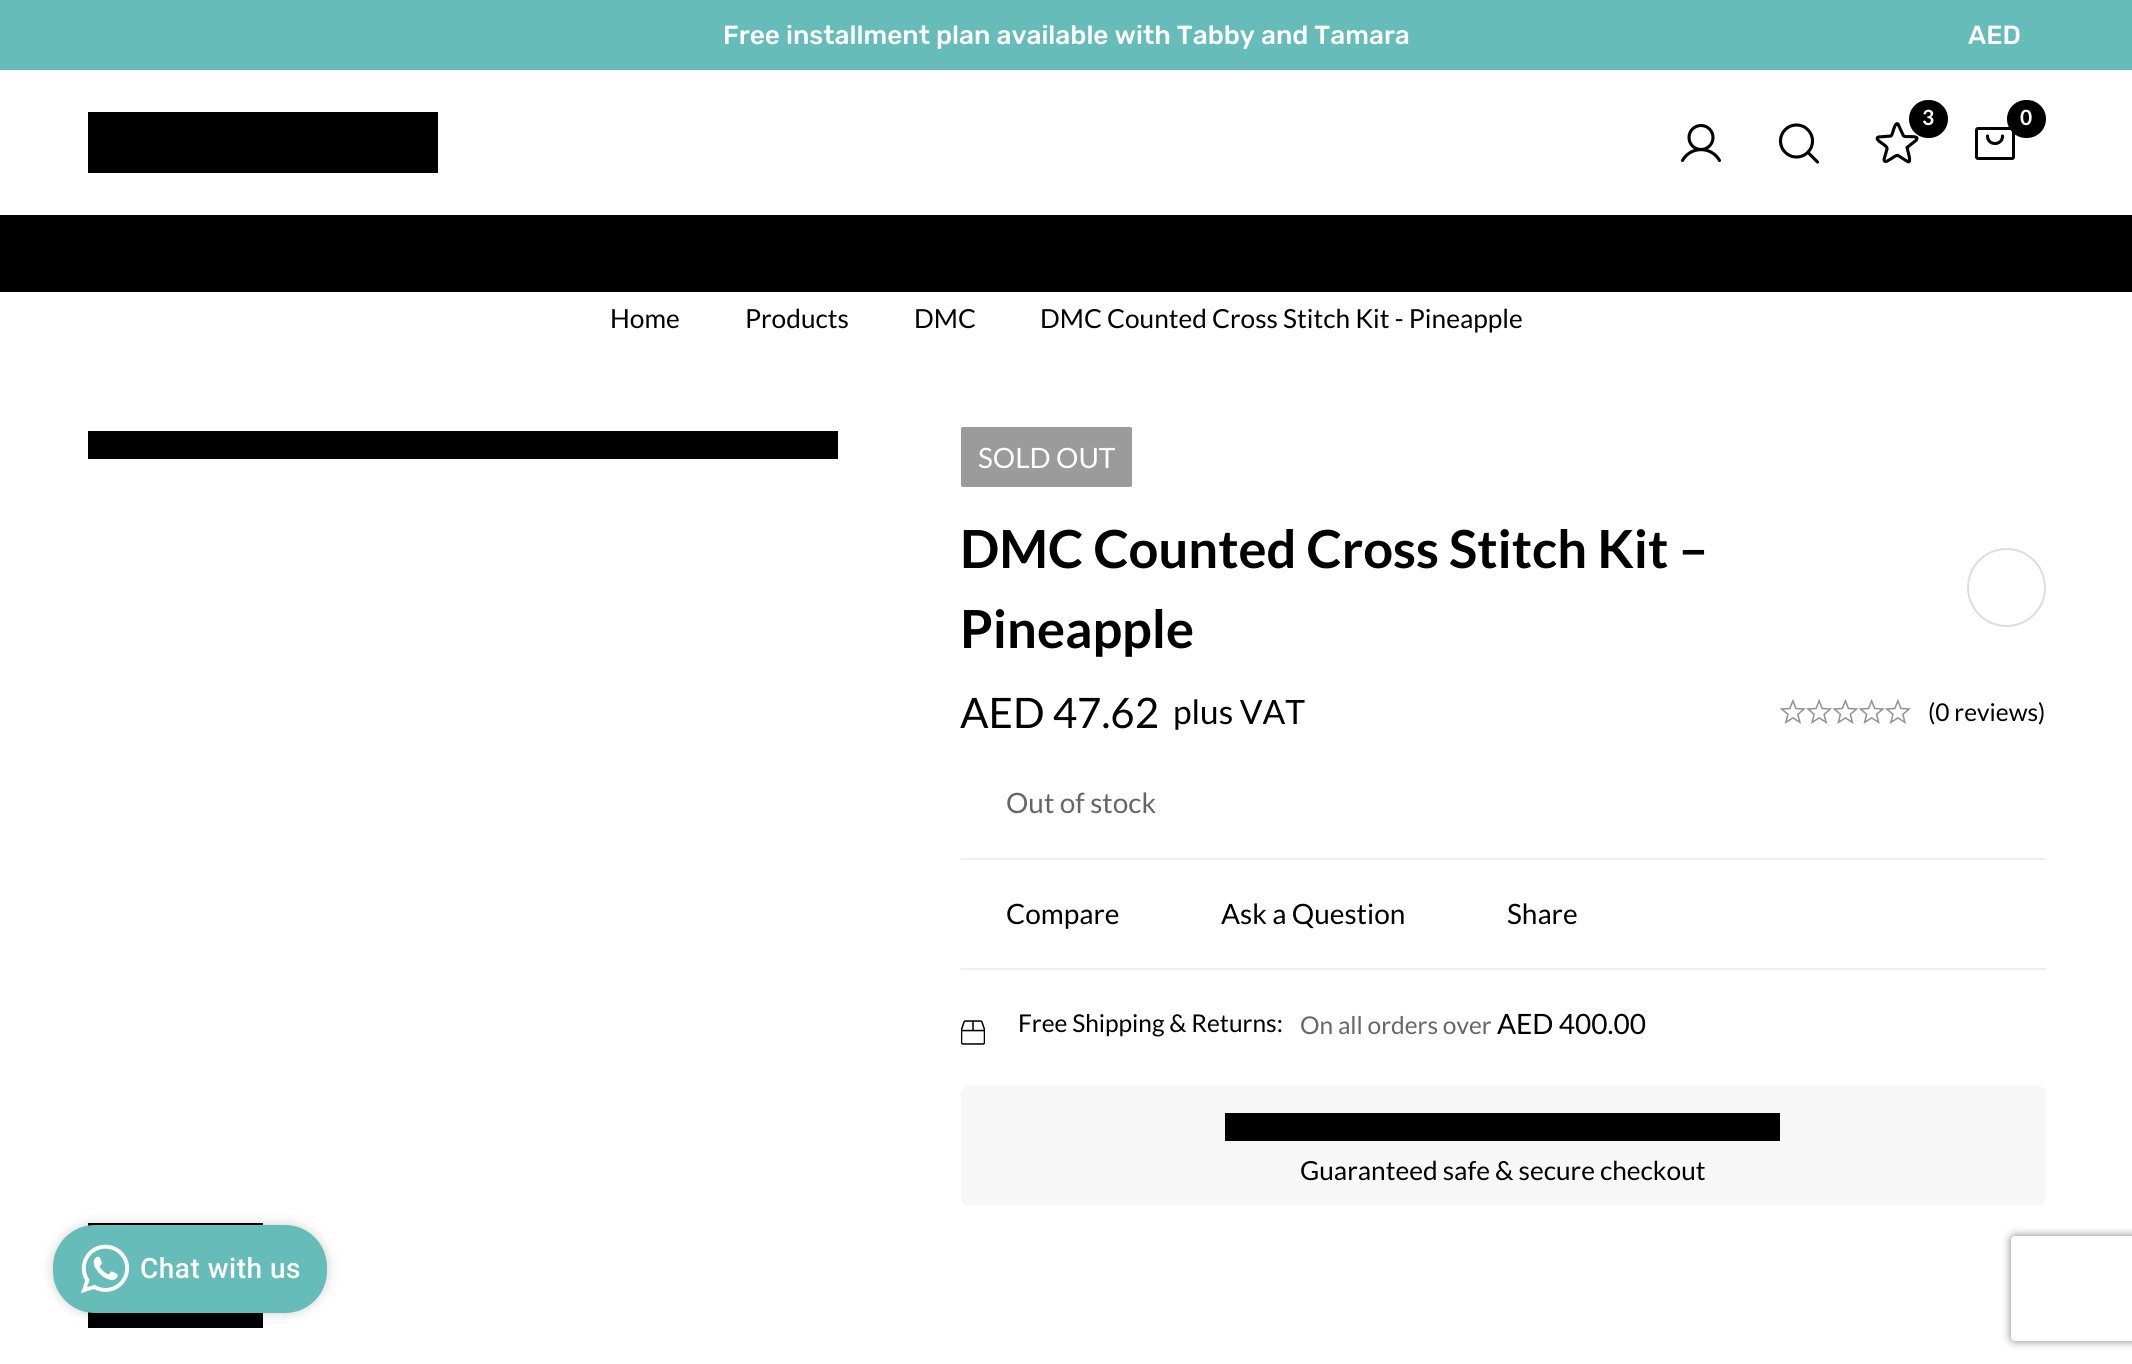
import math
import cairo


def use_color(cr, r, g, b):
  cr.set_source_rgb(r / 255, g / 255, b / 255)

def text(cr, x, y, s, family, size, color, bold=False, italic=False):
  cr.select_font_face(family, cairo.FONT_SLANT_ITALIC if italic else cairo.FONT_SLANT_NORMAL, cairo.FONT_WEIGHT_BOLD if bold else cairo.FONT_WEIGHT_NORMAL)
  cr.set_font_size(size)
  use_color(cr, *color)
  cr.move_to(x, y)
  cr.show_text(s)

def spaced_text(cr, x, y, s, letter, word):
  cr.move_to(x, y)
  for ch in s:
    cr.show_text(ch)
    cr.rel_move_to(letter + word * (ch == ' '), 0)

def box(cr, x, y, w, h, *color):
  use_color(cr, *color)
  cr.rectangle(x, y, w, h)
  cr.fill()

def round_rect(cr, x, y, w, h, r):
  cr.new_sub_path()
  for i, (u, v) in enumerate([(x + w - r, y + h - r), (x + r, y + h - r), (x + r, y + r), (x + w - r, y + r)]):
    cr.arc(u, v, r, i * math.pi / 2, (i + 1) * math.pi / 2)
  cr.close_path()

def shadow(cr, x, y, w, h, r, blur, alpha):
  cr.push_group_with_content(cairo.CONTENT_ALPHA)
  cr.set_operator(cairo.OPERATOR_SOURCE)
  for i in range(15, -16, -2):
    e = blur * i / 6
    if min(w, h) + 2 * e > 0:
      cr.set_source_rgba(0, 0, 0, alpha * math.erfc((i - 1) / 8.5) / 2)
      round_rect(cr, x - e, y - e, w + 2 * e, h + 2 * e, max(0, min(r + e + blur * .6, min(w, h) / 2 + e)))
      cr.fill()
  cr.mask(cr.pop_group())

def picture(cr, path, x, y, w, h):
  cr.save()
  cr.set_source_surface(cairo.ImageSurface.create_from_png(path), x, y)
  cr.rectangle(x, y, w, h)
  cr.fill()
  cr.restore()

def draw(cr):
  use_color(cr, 255, 255, 255)
  cr.paint()
  box(cr, 0, 0, 2132, 70, 101, 188, 185)
  box(cr, 88, 112, 350, 61, 0, 0, 0)
  cr.new_path()
  cr.move_to(1898, 155.5)
  cr.line_to(1907.5, 161.5)
  cr.curve_to(1912.5, 164.5, 1907, 148.5, 1907, 147.5)
  cr.line_to(1916.5, 140)
  cr.line_to(1917, 138)
  cr.curve_to(1916, 135.5, 1906, 137.5, 1903.5, 136)
  cr.line_to(1898, 124)
  cr.curve_to(1894.5, 121.5, 1893, 134.5, 1891, 136)
  cr.line_to(1878.5, 137)
  cr.line_to(1877.5, 137.5)
  cr.curve_to(1875, 141, 1888, 145, 1887, 149)
  cr.line_to(1884, 159.5)
  cr.curve_to(1884.5, 166, 1895, 154, 1898, 155.5)
  cr.close_path()
  cr.set_line_width(3.1)
  cr.set_line_cap(cairo.LINE_CAP_ROUND)
  cr.set_line_join(cairo.LINE_JOIN_ROUND)
  cr.stroke()
  round_rect(cr, 1909, 100, 39, 38, 19)
  cr.fill()
  round_rect(cr, 1976.5, 128.5, 37, 30, 1.5)
  cr.set_line_width(3)
  cr.set_line_cap(cairo.LINE_CAP_BUTT)
  cr.set_line_join(cairo.LINE_JOIN_MITER)
  cr.stroke()
  round_rect(cr, 2007, 100, 39, 38, 19)
  cr.fill()
  cr.new_path()
  cr.move_to(2002.5, 136)
  cr.curve_to(2002.5, 146, 1987.5, 146, 1987.5, 136)
  cr.set_line_width(3.1)
  cr.set_line_cap(cairo.LINE_CAP_ROUND)
  cr.set_line_join(cairo.LINE_JOIN_ROUND)
  cr.stroke()
  cr.arc(1701, 137.5, 12, 0, 2 * math.pi)
  cr.set_line_cap(cairo.LINE_CAP_BUTT)
  cr.set_line_join(cairo.LINE_JOIN_MITER)
  cr.stroke()
  cr.new_path()
  cr.move_to(1682.5, 160.5)
  cr.curve_to(1690.5, 146, 1711.5, 146, 1719.5, 160.5)
  cr.set_line_cap(cairo.LINE_CAP_ROUND)
  cr.set_line_join(cairo.LINE_JOIN_ROUND)
  cr.stroke()
  cr.arc(1796.5, 141, 16, 0, 2 * math.pi)
  cr.set_line_cap(cairo.LINE_CAP_BUTT)
  cr.set_line_join(cairo.LINE_JOIN_MITER)
  cr.stroke()
  cr.new_path()
  cr.move_to(1808, 152.5)
  cr.line_to(1817.5, 162)
  cr.set_line_cap(cairo.LINE_CAP_ROUND)
  cr.set_line_join(cairo.LINE_JOIN_ROUND)
  cr.stroke()
  box(cr, 0, 215, 2132, 77, 0, 0, 0)
  box(cr, 88, 431, 750, 28, 0, 0, 0)
  box(cr, 88, 1223, 175, 105, 0, 0, 0)
  use_color(cr, 155, 155, 155)
  round_rect(cr, 961, 427, 171, 60, 2)
  cr.fill()
  cr.arc(2006.5, 587.5, 38.5, 0, 2 * math.pi)
  use_color(cr, 221, 221, 221)
  cr.set_line_width(2)
  cr.set_line_cap(cairo.LINE_CAP_BUTT)
  cr.set_line_join(cairo.LINE_JOIN_MITER)
  cr.stroke()
  picture(cr, "img_01.png", 1780, 699, 26, 25)
  picture(cr, "img_02.png", 1806, 699, 26, 25)
  picture(cr, "img_03.png", 1832, 699, 27, 25)
  picture(cr, "img_04.png", 1859, 699, 26, 25)
  picture(cr, "img_01.png", 1885, 699, 26, 25)
  box(cr, 961, 858, 1085, 2, 238, 238, 238)
  box(cr, 961, 968, 1085, 2, 238, 238, 238)
  picture(cr, "img_05.png", 961, 1020, 24, 25)
  use_color(cr, 247, 247, 247)
  round_rect(cr, 961, 1085, 1085, 121, 9)
  cr.fill()
  box(cr, 1225, 1113, 555, 28, 0, 0, 0)
  use_color(cr, 0, 0, 0)
  shadow(cr, 53, 1225, 274, 88, 42, 6, 0.2)
  use_color(cr, 101, 188, 185)
  round_rect(cr, 53, 1225, 274, 88, 42)
  cr.fill()
  picture(cr, "img_06.png", 81, 1244, 49, 50)
  cr.save()
  cr.set_fill_rule(cairo.FILL_RULE_EVEN_ODD)
  cr.new_path()
  cr.move_to(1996, 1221)
  cr.line_to(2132, 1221)
  cr.line_to(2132, 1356)
  cr.line_to(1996, 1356)
  cr.close_path()
  cr.move_to(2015, 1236)
  cr.line_to(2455, 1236)
  cr.curve_to(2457, 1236, 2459, 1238, 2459, 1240)
  cr.line_to(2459, 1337)
  cr.curve_to(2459, 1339, 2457, 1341, 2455, 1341)
  cr.line_to(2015, 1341)
  cr.curve_to(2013, 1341, 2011, 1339, 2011, 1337)
  cr.line_to(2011, 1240)
  cr.curve_to(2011, 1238, 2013, 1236, 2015, 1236)
  cr.close_path()
  cr.clip()
  use_color(cr, 128, 128, 128)
  shadow(cr, 2011, 1236, 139, 105, 4, 4.5, 1)
  cr.restore()
  text(cr, 723, 44, "Free installment plan available with Tabby and Tamara", "Rubik Medium", 26.25, (255, 255, 255))
  text(cr, 1968, 44, "AED", "Rubik Medium", 26.25, (255, 255, 255))
  text(cr, 1922, 125, "3", "Lato", 21, (255, 255, 255), bold=True)
  text(cr, 2020, 125, "0", "Lato", 21, (255, 255, 255), bold=True)
  text(cr, 610, 328, "Home", "Lato", 26.25, (0, 0, 0))
  text(cr, 745, 328, "Products", "Lato", 26.25, (0, 0, 0))
  text(cr, 914, 328, "DMC", "Lato", 26.25, (0, 0, 0))
  text(cr, 1040, 328, "DMC Counted Cross Stitch Kit - Pineapple", "Lato", 26.25, (0, 0, 0))
  text(cr, 978, 468, "SOLD OUT", "Lato", 28, (255, 255, 255))
  text(cr, 960, 568, "DMC Counted Cross Stitch Kit –", "Lato", 52.5, (0, 0, 0), bold=True)
  text(cr, 960, 648, "Pineapple", "Lato", 52.5, (0, 0, 0), bold=True)
  text(cr, 960, 728, "AED 47.62", "Lato", 42, (0, 0, 0))
  text(cr, 1173, 724, "plus VAT", "Lato", 33.5, (0, 0, 0))
  text(cr, 1928, 721, "(0 reviews)", "Lato", 24.5, (0, 0, 0))
  text(cr, 1006, 813, "Out of stock", "Lato", 28, (102, 102, 102))
  text(cr, 1006, 924, "Compare", "Lato", 28, (0, 0, 0))
  text(cr, 1221, 924, "Ask a Question", "Lato", 28, (0, 0, 0))
  text(cr, 1507, 924, "Share", "Lato", 28, (0, 0, 0))
  text(cr, 1018, 1032, "Free Shipping & Returns:", "Lato", 24.5, (0, 0, 0))
  text(cr, 1300, 1034, "On all orders over", "Lato", 24.5, (102, 102, 102))
  text(cr, 1497, 1034, "AED 400.00", "Lato", 28, (0, 0, 0))
  text(cr, 1300, 1180, "Guaranteed safe & secure checkout", "Lato", 26.25, (0, 0, 0))
  cr.select_font_face("Roboto Medium")
  cr.set_font_size(28)
  use_color(cr, 255, 255, 255)
  spaced_text(cr, 140, 1278, "Chat with us", 0.5, 0)


surface = cairo.ImageSurface(cairo.FORMAT_RGB24, 2132, 1364)
cr = cairo.Context(surface)
options = cairo.FontOptions()
options.set_hint_metrics(cairo.HINT_METRICS_OFF)
options.set_hint_style(cairo.HINT_STYLE_NONE)
cr.set_font_options(options)
cr.set_miter_limit(4)
draw(cr)
surface.write_to_png("out.png")
